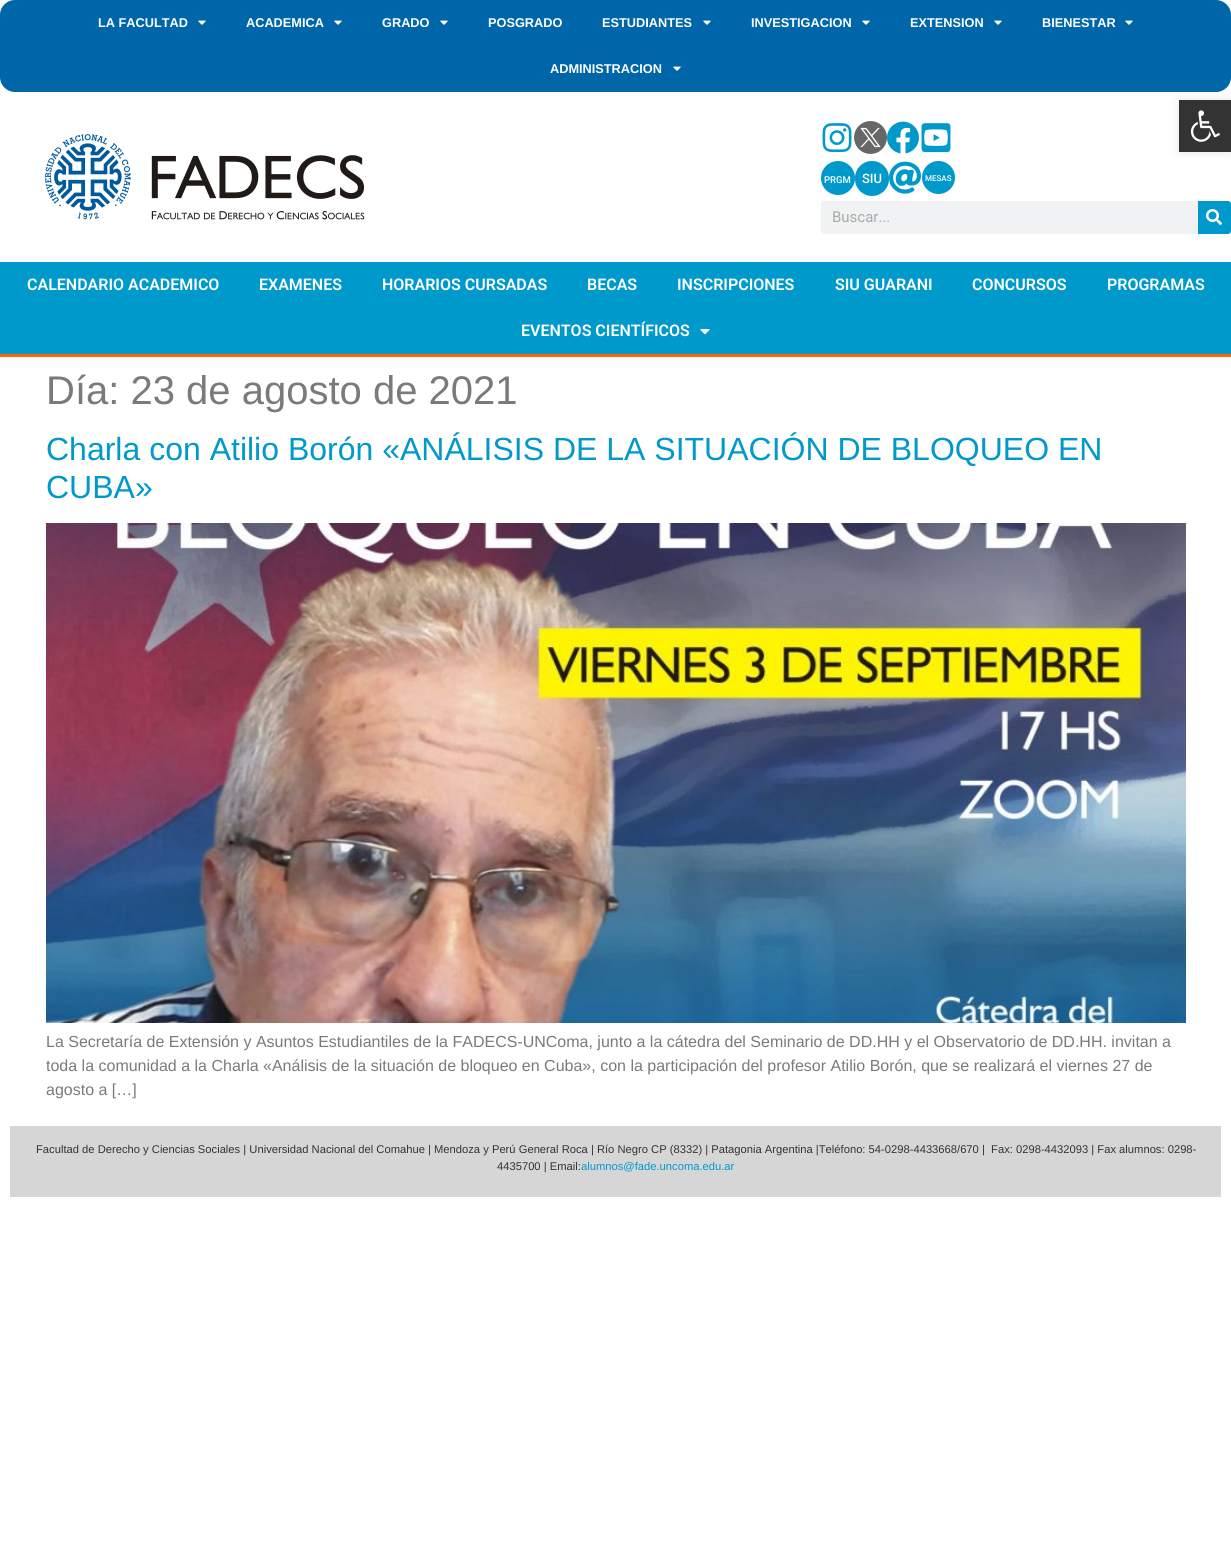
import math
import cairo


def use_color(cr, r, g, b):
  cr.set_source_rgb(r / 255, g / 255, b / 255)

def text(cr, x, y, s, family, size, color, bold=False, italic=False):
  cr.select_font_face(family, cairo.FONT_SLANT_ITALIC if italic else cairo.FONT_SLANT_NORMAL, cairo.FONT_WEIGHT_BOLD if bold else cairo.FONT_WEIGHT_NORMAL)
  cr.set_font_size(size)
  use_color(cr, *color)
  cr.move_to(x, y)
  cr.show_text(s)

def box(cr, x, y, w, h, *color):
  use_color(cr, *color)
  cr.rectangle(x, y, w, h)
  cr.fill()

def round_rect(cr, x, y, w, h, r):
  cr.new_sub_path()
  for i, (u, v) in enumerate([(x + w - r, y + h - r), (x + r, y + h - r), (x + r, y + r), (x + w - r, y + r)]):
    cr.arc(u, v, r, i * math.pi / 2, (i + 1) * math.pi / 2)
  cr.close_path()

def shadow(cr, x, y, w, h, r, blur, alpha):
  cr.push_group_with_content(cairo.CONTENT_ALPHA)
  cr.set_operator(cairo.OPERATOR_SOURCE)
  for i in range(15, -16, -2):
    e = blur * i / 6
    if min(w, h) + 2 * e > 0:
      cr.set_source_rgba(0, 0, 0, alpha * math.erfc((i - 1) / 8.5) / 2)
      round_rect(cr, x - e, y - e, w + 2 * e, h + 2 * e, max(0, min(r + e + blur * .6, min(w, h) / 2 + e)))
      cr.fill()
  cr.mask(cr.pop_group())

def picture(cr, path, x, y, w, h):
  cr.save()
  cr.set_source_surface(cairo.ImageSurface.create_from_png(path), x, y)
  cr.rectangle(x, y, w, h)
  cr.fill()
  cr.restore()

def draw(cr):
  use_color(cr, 255, 255, 255)
  cr.paint()
  use_color(cr, 0, 102, 170)
  round_rect(cr, 0, 0, 1231, 92, 15)
  cr.fill()
  picture(cr, "img_01.png", 198, 20, 8, 5)
  picture(cr, "img_01.png", 334, 20, 8, 5)
  picture(cr, "img_01.png", 440, 20, 8, 5)
  picture(cr, "img_01.png", 703, 20, 8, 5)
  picture(cr, "img_01.png", 862, 20, 8, 5)
  picture(cr, "img_01.png", 994, 20, 8, 5)
  picture(cr, "img_01.png", 1125, 20, 8, 5)
  picture(cr, "img_01.png", 673, 66, 8, 5)
  picture(cr, "img_02.png", 45, 134, 320, 86)
  picture(cr, "img_03.png", 822, 123, 30, 30)
  picture(cr, "img_04.png", 854, 121, 33, 33)
  picture(cr, "img_05.png", 887, 121, 32, 33)
  picture(cr, "img_06.png", 921, 123, 30, 30)
  use_color(cr, 0, 153, 204)
  cr.arc(838, 178, 17, 0, 2 * math.pi)
  cr.fill()
  round_rect(cr, 855, 161, 34, 35, 17)
  cr.fill()
  picture(cr, "img_07.png", 889, 161, 32, 33)
  cr.arc(938.5, 177.5, 16.5, 0, 2 * math.pi)
  cr.fill()
  use_color(cr, 241, 242, 243)
  round_rect(cr, 821, 201, 410, 33, 3)
  cr.fill()
  use_color(cr, 0, 153, 204)
  cr.new_path()
  cr.move_to(1198, 201)
  cr.line_to(1228, 201)
  cr.curve_to(1229.5, 201, 1231, 202.5, 1231, 204)
  cr.line_to(1231, 231)
  cr.curve_to(1231, 232.5, 1229.5, 234, 1228, 234)
  cr.line_to(1198, 234)
  cr.close_path()
  cr.fill()
  picture(cr, "img_08.png", 1206, 209, 16, 16)
  box(cr, 0, 262, 1231, 92, 0, 153, 204)
  box(cr, 0, 354, 1231, 3, 255, 102, 0)
  picture(cr, "img_09.png", 700, 329, 10, 6)
  use_color(cr, 0, 0, 0)
  shadow(cr, 1179, 100, 52, 52, 0, 5, 0.1)
  box(cr, 1179, 100, 52, 52, 51, 51, 51)
  picture(cr, "img_10.png", 1190, 110, 30, 32)
  picture(cr, "img_11.png", 46, 523, 1140, 500)
  box(cr, 10, 1126, 1211, 71, 214, 214, 214)
  text(cr, 98, 27, "LA FACULTAD", "Liberation Sans", 12.75, (255, 255, 255), bold=True)
  text(cr, 246, 27, "ACADEMICA", "Liberation Sans", 12.75, (255, 255, 255), bold=True)
  text(cr, 382, 27, "GRADO", "Liberation Sans", 12.75, (255, 255, 255), bold=True)
  text(cr, 488, 27, "POSGRADO", "Liberation Sans", 12.75, (255, 255, 255), bold=True)
  text(cr, 602, 27, "ESTUDIANTES", "Liberation Sans", 12.75, (255, 255, 255), bold=True)
  text(cr, 751, 27, "INVESTIGACION", "Liberation Sans", 12.75, (255, 255, 255), bold=True)
  text(cr, 910, 27, "EXTENSION", "Liberation Sans", 12.75, (255, 255, 255), bold=True)
  text(cr, 1042, 27, "BIENESTAR", "Liberation Sans", 12.75, (255, 255, 255), bold=True)
  text(cr, 550, 73, "ADMINISTRACION", "Liberation Sans", 12.75, (255, 255, 255), bold=True)
  text(cr, 824, 183, "PRGM", "Roboto Medium", 9.5, (255, 255, 255))
  text(cr, 862, 183, "SIU", "Roboto Medium", 13, (255, 255, 255))
  text(cr, 925, 181, "MESAS", "Roboto Medium", 8, (255, 255, 255))
  text(cr, 832, 222, "Buscar...", "Roboto", 15, (170, 170, 170))
  text(cr, 27, 290, "CALENDARIO ACADEMICO", "Roboto SemiBold", 16, (255, 255, 255))
  text(cr, 259, 290, "EXAMENES", "Roboto SemiBold", 16, (255, 255, 255))
  text(cr, 382, 290, "HORARIOS CURSADAS", "Roboto SemiBold", 16, (255, 255, 255))
  text(cr, 587, 290, "BECAS", "Roboto SemiBold", 16, (255, 255, 255))
  text(cr, 677, 290, "INSCRIPCIONES", "Roboto SemiBold", 16, (255, 255, 255))
  text(cr, 835, 290, "SIU GUARANI", "Roboto SemiBold", 16, (255, 255, 255))
  text(cr, 972, 290, "CONCURSOS", "Roboto SemiBold", 16, (255, 255, 255))
  text(cr, 1107, 290, "PROGRAMAS", "Roboto SemiBold", 16, (255, 255, 255))
  text(cr, 521, 336, "EVENTOS CIENTÍFICOS", "Roboto SemiBold", 16, (255, 255, 255))
  text(cr, 46, 404, "Día: 23 de agosto de 2021", "Liberation Sans", 40, (122, 122, 122))
  text(cr, 46, 460, "Charla con Atilio Borón «ANÁLISIS DE LA SITUACIÓN DE BLOQUEO EN", "Liberation Sans", 32, (0, 153, 204))
  text(cr, 46, 498, "CUBA»", "Liberation Sans", 32, (0, 153, 204))
  text(cr, 46, 1047, "La Secretaría de Extensión y Asuntos Estudiantiles de la FADECS-UNComa, junto a la cátedra del Seminario de DD.HH y el Observatorio de DD.HH. invitan a", "Liberation Sans", 16, (122, 122, 122))
  text(cr, 46, 1071, "toda la comunidad a la Charla «Análisis de la situación de bloqueo en Cuba», con la participación del profesor Atilio Borón, que se realizará el viernes 27 de", "Liberation Sans", 16, (122, 122, 122))
  text(cr, 46, 1095, "agosto a […]", "Liberation Sans", 16, (122, 122, 122))
  text(cr, 36, 1153, "Facultad de Derecho y Ciencias Sociales | Universidad Nacional del Comahue | Mendoza y Perú General Roca | Río Negro CP (8332) | Patagonia Argentina |Teléfono: 54-0298-4433668/670 |  Fax: 0298-4432093 | Fax alumnos: 0298-", "Liberation Sans", 11.2, (51, 51, 51))
  text(cr, 497, 1170, "4435700 | Email:", "Liberation Sans", 11.2, (51, 51, 51))
  text(cr, 581, 1170, "alumnos@fade.uncoma.edu.ar", "Liberation Sans", 11.2, (0, 153, 204))


surface = cairo.ImageSurface(cairo.FORMAT_RGB24, 1231, 1553)
cr = cairo.Context(surface)
options = cairo.FontOptions()
options.set_hint_metrics(cairo.HINT_METRICS_OFF)
options.set_hint_style(cairo.HINT_STYLE_NONE)
cr.set_font_options(options)
cr.set_miter_limit(4)
draw(cr)
surface.write_to_png("out.png")
